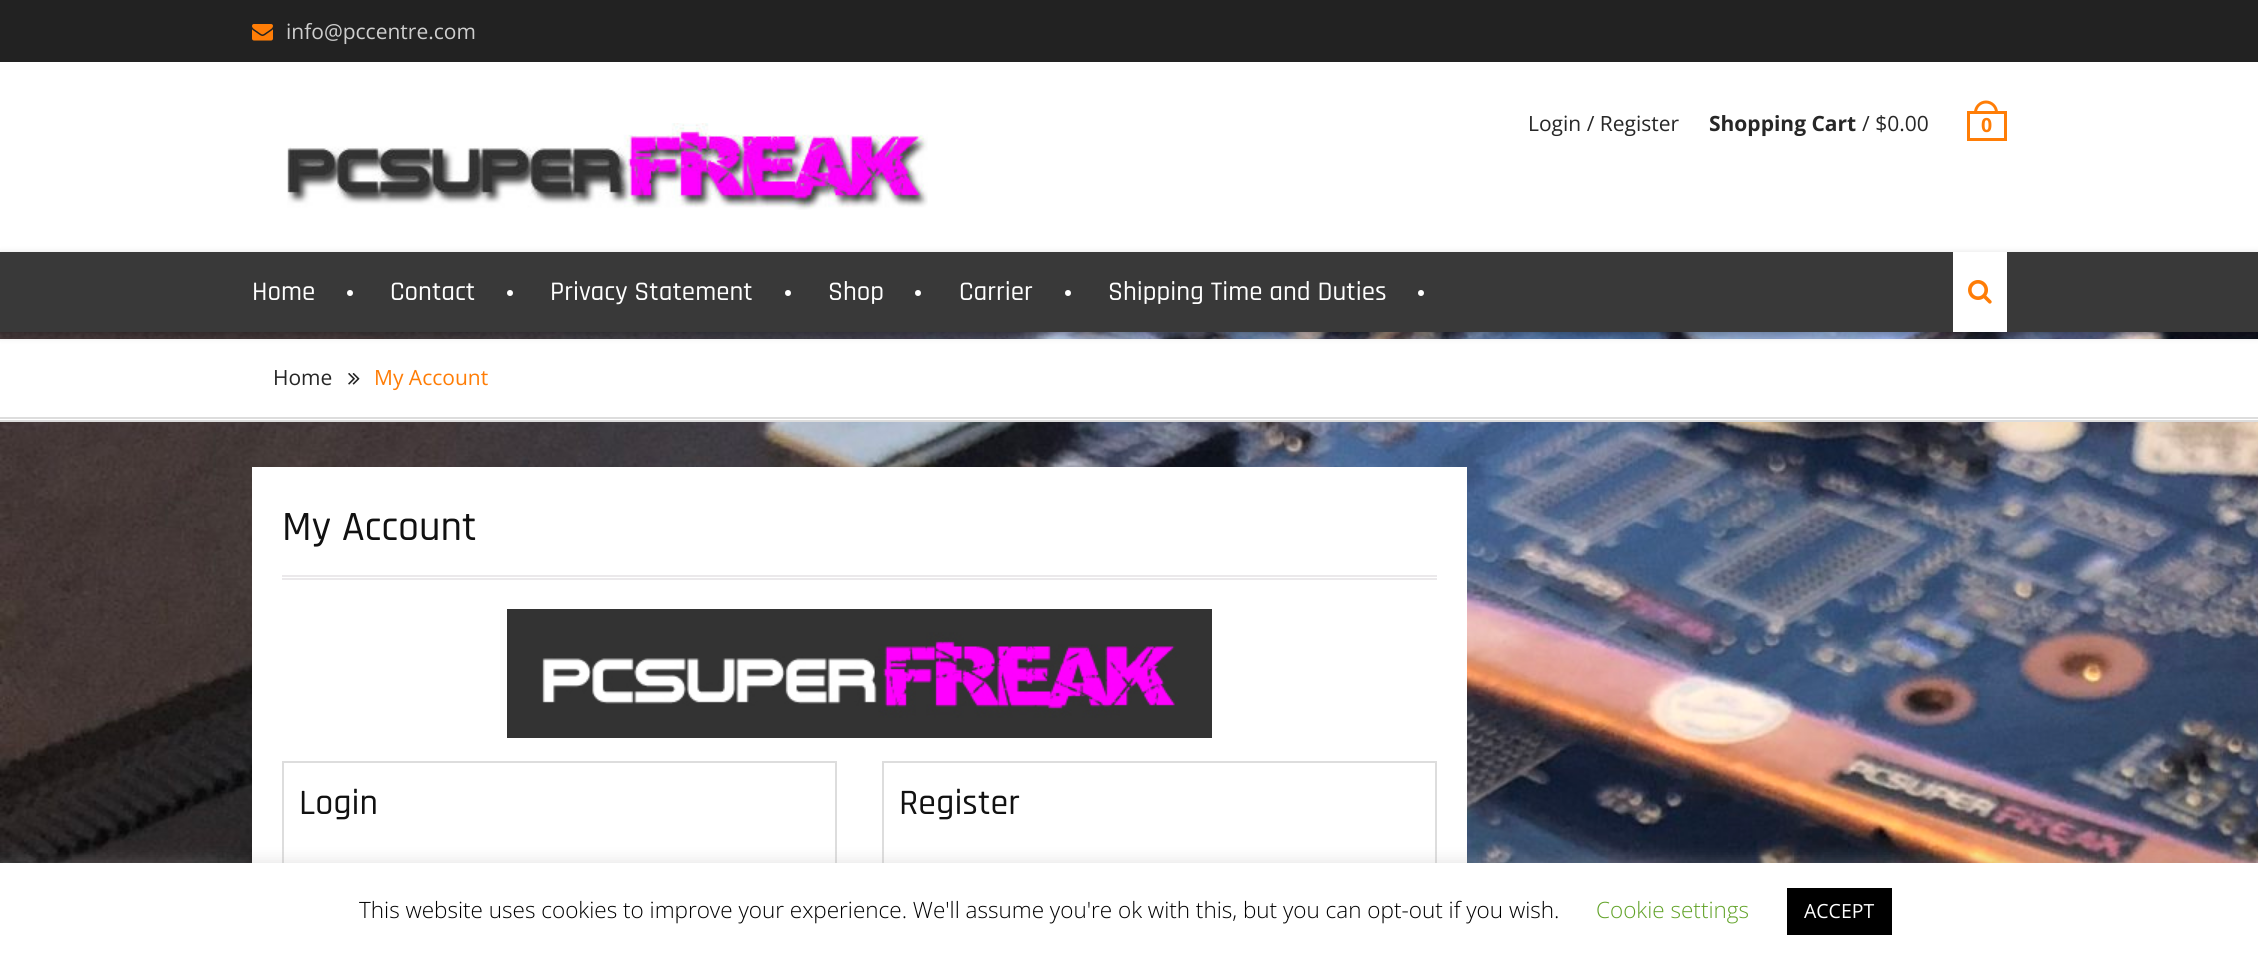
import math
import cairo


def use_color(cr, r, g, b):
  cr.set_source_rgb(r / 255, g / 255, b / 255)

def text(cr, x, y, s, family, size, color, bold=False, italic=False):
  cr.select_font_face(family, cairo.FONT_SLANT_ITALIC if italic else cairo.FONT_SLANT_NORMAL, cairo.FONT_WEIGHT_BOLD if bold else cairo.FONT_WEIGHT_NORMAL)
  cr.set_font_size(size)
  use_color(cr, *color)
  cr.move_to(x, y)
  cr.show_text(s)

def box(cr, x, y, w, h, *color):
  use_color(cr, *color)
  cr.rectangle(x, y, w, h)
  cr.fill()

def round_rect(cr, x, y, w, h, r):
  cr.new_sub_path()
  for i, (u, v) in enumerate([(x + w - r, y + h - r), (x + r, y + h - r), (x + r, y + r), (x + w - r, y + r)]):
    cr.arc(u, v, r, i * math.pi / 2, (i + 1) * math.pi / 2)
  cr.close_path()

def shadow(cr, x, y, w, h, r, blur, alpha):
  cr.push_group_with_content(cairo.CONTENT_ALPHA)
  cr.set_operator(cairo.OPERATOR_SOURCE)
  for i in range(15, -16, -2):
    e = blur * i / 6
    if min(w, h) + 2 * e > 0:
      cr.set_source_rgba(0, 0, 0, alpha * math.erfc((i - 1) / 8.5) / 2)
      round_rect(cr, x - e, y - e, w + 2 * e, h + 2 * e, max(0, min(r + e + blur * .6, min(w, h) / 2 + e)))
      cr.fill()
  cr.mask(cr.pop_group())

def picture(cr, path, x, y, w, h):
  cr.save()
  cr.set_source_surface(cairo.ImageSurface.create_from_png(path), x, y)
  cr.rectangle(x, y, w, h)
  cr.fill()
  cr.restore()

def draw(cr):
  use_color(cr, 255, 255, 255)
  cr.paint()
  picture(cr, "img_01.png", 0, 332, 2258, 531)
  box(cr, 0, 0, 2258, 62, 34, 34, 34)
  picture(cr, "img_02.png", 252, 24, 21, 17)
  picture(cr, "img_03.png", 287, 123, 641, 87)
  use_color(cr, 255, 125, 6)
  cr.set_fill_rule(cairo.FILL_RULE_EVEN_ODD)
  cr.new_path()
  cr.move_to(1986, 100.5)
  cr.curve_to(1992.5, 100.5, 1998, 106, 1998, 112.5)
  cr.line_to(1974, 112.5)
  cr.curve_to(1974, 106, 1979.5, 100.5, 1986, 100.5)
  cr.close_path()
  cr.move_to(1986, 103.5)
  cr.curve_to(1991, 103.5, 1995, 107.5, 1995, 112.5)
  cr.line_to(1977, 112.5)
  cr.curve_to(1977, 107.5, 1981, 103.5, 1986, 103.5)
  cr.close_path()
  cr.fill()
  cr.rectangle(1968.5, 112.5, 37, 27)
  cr.set_line_width(3)
  cr.stroke()
  box(cr, 0, 339, 2258, 81, 255, 255, 255)
  use_color(cr, 0, 0, 0)
  shadow(cr, 0, 255, 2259, 80, 0, 4, 0.26)
  box(cr, 0, 252, 2258, 80, 57, 57, 57)
  use_color(cr, 255, 255, 255)
  cr.arc(350, 293, 3, 0, 2 * math.pi)
  cr.fill()
  cr.arc(510, 293, 3, 0, 2 * math.pi)
  cr.fill()
  cr.arc(788, 293, 3, 0, 2 * math.pi)
  cr.fill()
  cr.arc(918, 293, 3, 0, 2 * math.pi)
  cr.fill()
  cr.arc(1068, 293, 3, 0, 2 * math.pi)
  cr.fill()
  cr.arc(1421, 293, 3, 0, 2 * math.pi)
  cr.fill()
  box(cr, 1953, 252, 54, 80, 255, 255, 255)
  picture(cr, "img_04.png", 1968, 280, 24, 24)
  box(cr, 0, 417, 2258, 2, 221, 221, 221)
  box(cr, 0, 420, 2258, 2, 221, 221, 221)
  picture(cr, "img_05.png", 348, 373, 12, 12)
  box(cr, 252, 467, 1215, 396, 255, 255, 255)
  box(cr, 282, 575, 1155, 2, 235, 233, 235)
  box(cr, 282, 578, 1155, 2, 235, 233, 235)
  picture(cr, "img_06.png", 507, 609, 705, 129)
  cr.rectangle(283, 762, 553, 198)
  use_color(cr, 221, 221, 221)
  cr.set_line_width(2)
  cr.stroke()
  cr.rectangle(883, 762, 553, 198)
  cr.stroke()
  use_color(cr, 172, 171, 171)
  shadow(cr, 0, 861, 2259, 98, 0, 7.5, 0.3)
  box(cr, 0, 863, 2258, 96, 255, 255, 255)
  box(cr, 1787, 888, 105, 47, 0, 0, 0)
  text(cr, 286, 39, "info@pccentre.com", "Open Sans", 21, (206, 206, 206))
  text(cr, 1528, 131, "Login / Register", "Open Sans", 21, (39, 39, 39))
  text(cr, 1709, 131, "Shopping Cart", "Open Sans", 21, (39, 39, 39), bold=True)
  text(cr, 1862, 131, "/ $0.00", "Open Sans", 21, (39, 39, 39))
  text(cr, 1981, 132, "0", "Open Sans", 19.5, (255, 125, 6), bold=True)
  text(cr, 252, 300, "Home", "Rajdhani Medium", 27, (255, 255, 255))
  text(cr, 390, 300, "Contact", "Rajdhani Medium", 27, (255, 255, 255))
  text(cr, 550, 300, "Privacy Statement", "Rajdhani Medium", 27, (255, 255, 255))
  text(cr, 828, 300, "Shop", "Rajdhani Medium", 27, (255, 255, 255))
  text(cr, 959, 300, "Carrier", "Rajdhani Medium", 27, (255, 255, 255))
  text(cr, 1108, 300, "Shipping Time and Duties", "Rajdhani Medium", 27, (255, 255, 255))
  text(cr, 273, 385, "Home", "Open Sans", 21, (39, 39, 39))
  text(cr, 374, 385, "My Account", "Open Sans", 21, (255, 125, 6))
  text(cr, 282, 540, "My Account", "Rajdhani Medium", 42, (17, 17, 17))
  text(cr, 299, 814, "Login", "Rajdhani Medium", 36, (17, 17, 17))
  text(cr, 899, 814, "Register", "Rajdhani Medium", 36, (17, 17, 17))
  text(cr, 359, 918, "This website uses cookies to improve your experience. We'll assume you're ok with this, but you can opt-out if you wish.", "Open Sans Light", 22.5, (0, 0, 0))
  text(cr, 1596, 918, "Cookie settings", "Open Sans Light", 22.5, (98, 163, 41))
  text(cr, 1804, 918, "ACCEPT", "Open Sans", 19.5, (255, 255, 255))


surface = cairo.ImageSurface(cairo.FORMAT_RGB24, 2258, 959)
cr = cairo.Context(surface)
options = cairo.FontOptions()
options.set_hint_metrics(cairo.HINT_METRICS_OFF)
options.set_hint_style(cairo.HINT_STYLE_NONE)
cr.set_font_options(options)
cr.set_miter_limit(4)
draw(cr)
surface.write_to_png("out.png")
